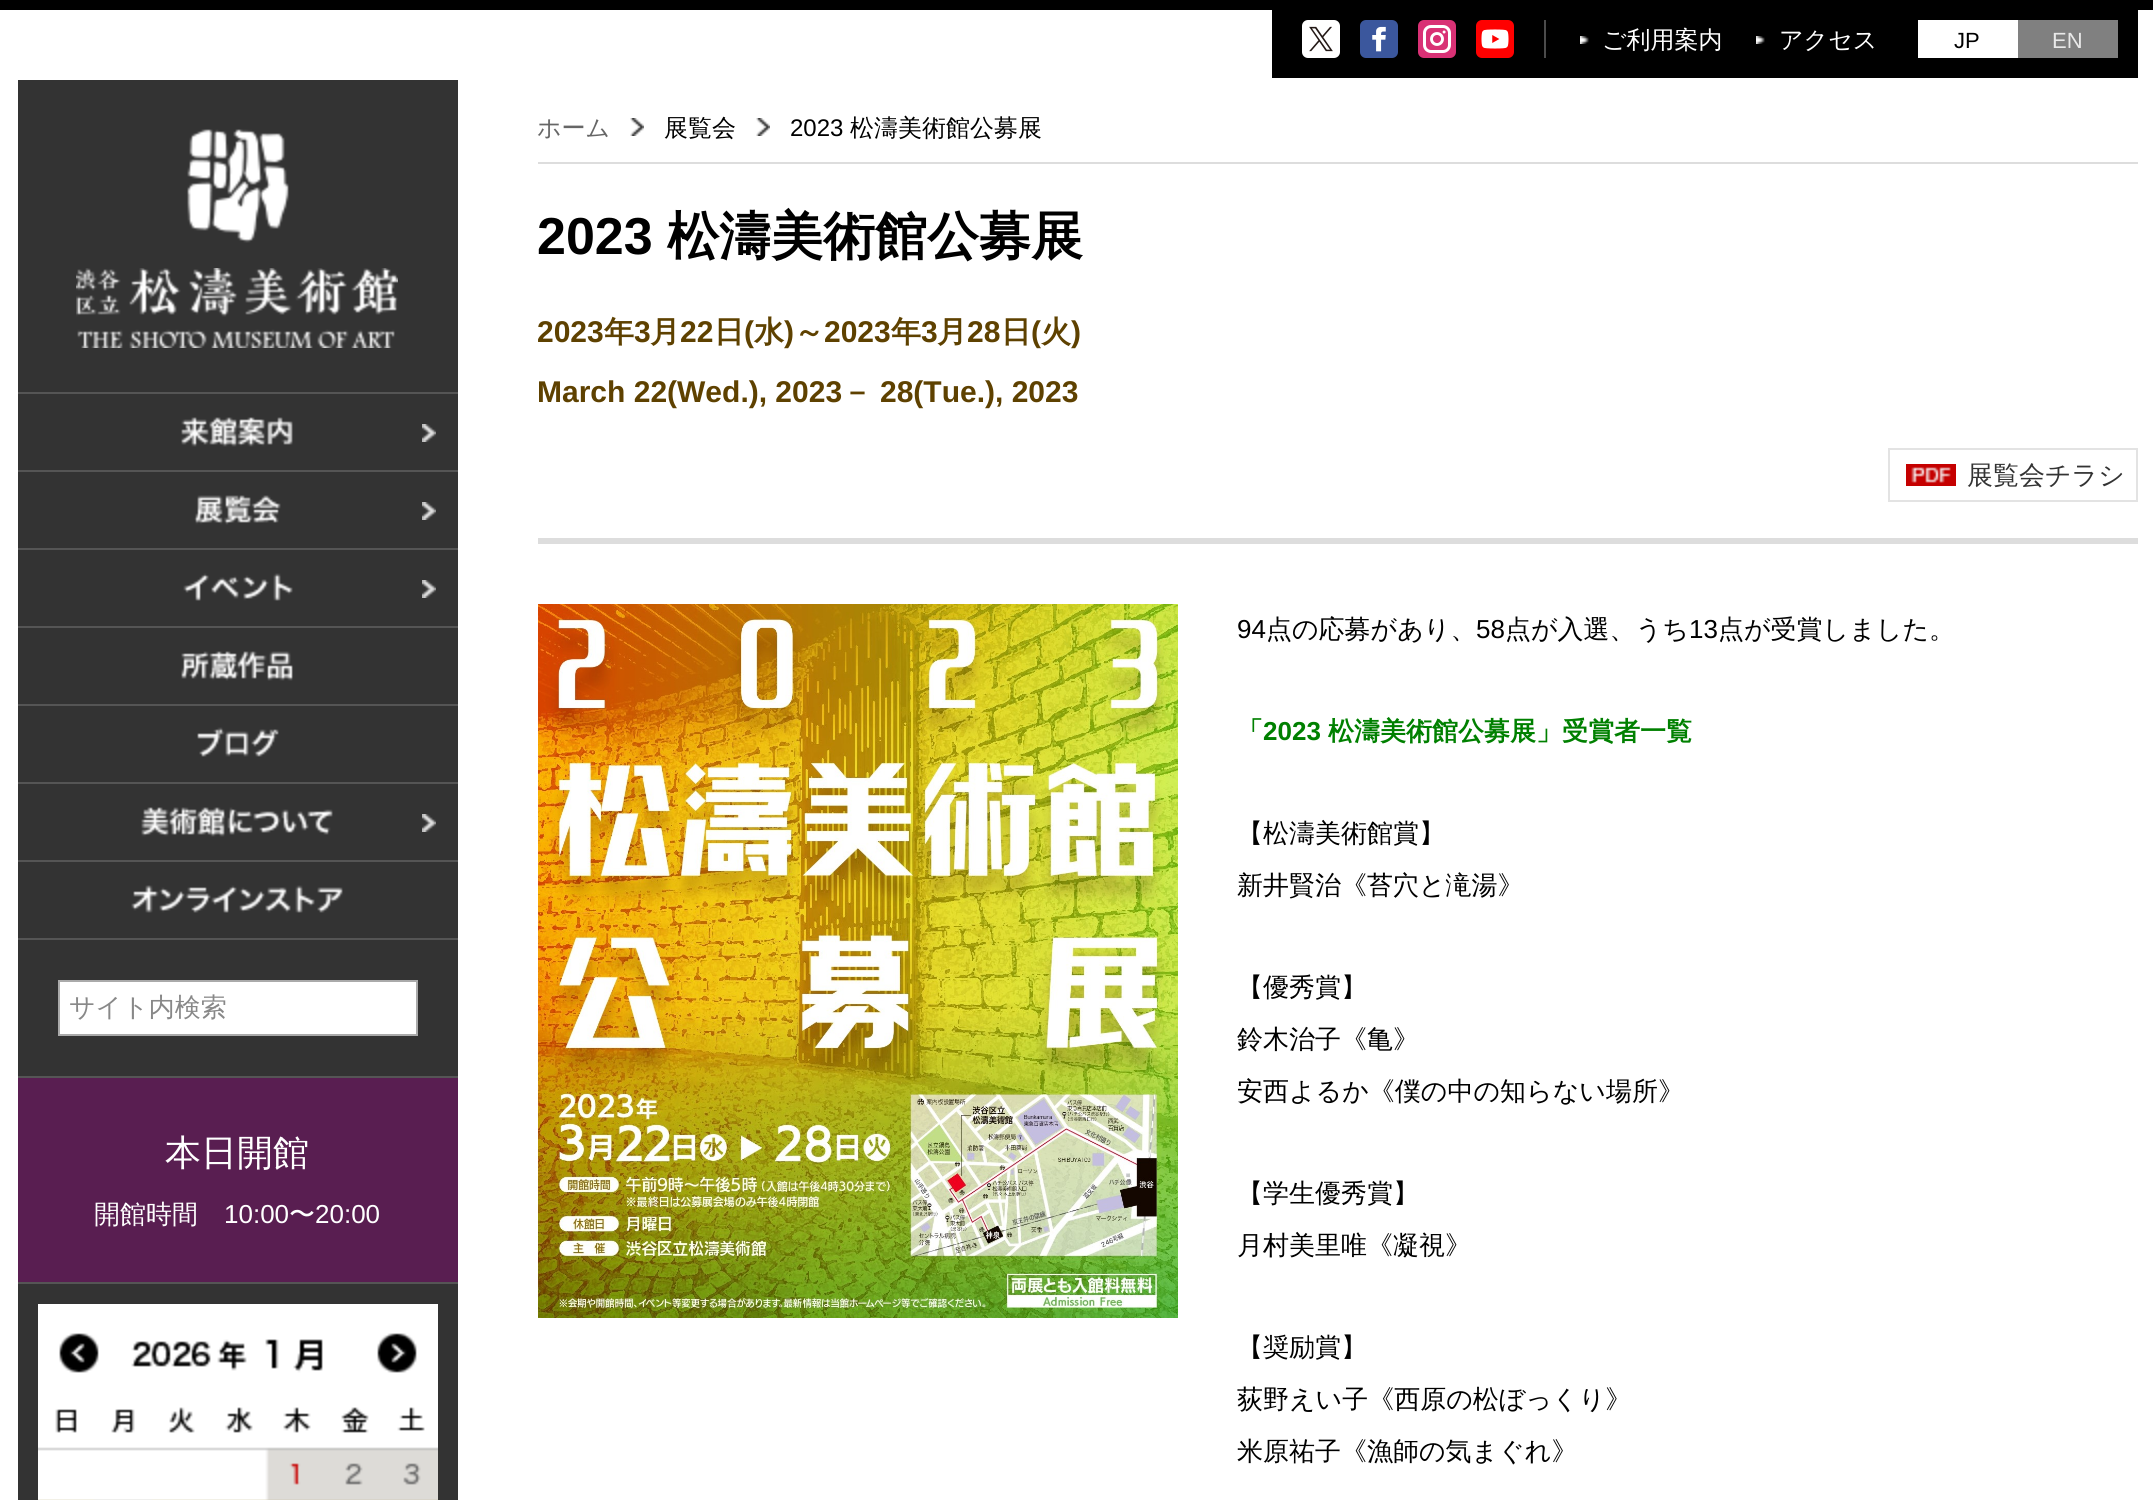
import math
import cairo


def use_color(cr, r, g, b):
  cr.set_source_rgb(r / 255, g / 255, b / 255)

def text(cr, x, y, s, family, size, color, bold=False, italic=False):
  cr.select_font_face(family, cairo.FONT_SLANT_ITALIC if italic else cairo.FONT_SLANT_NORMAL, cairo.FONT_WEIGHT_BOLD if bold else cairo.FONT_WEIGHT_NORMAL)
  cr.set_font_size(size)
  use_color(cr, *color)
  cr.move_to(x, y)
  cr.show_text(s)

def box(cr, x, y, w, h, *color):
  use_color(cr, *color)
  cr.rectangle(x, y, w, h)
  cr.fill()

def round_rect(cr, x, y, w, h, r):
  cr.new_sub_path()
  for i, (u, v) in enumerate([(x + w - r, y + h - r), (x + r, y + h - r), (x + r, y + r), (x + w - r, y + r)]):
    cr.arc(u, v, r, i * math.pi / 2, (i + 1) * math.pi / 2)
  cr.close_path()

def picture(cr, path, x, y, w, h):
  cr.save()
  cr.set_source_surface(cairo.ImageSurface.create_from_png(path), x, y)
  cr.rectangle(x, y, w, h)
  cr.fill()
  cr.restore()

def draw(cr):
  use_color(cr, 255, 255, 255)
  cr.paint()
  box(cr, 0, 0, 2153, 10, 0, 0, 0)
  box(cr, 1272, 10, 866, 68, 0, 0, 0)
  box(cr, 1544, 20, 2, 38, 75, 75, 75)
  picture(cr, "img_01.png", 1302, 20, 38, 38)
  picture(cr, "img_02.png", 1360, 20, 38, 38)
  use_color(cr, 217, 49, 117)
  round_rect(cr, 1418, 20, 38, 38, 6)
  cr.fill()
  round_rect(cr, 1424.5, 26.5, 25, 25, 6.5)
  use_color(cr, 255, 255, 255)
  cr.set_line_width(3)
  cr.stroke()
  cr.arc(1437, 39, 5.5, 0, 2 * math.pi)
  cr.set_line_width(2.9)
  cr.stroke()
  cr.arc(1444.1, 32, 1.5, 0, 2 * math.pi)
  cr.fill()
  picture(cr, "img_03.png", 1476, 20, 38, 38)
  picture(cr, "img_04.png", 1580, 36, 9, 8)
  picture(cr, "img_04.png", 1756, 36, 9, 8)
  box(cr, 1918, 20, 100, 38, 255, 255, 255)
  box(cr, 2018, 20, 100, 38, 128, 128, 128)
  box(cr, 18, 80, 440, 1420, 51, 51, 51)
  picture(cr, "img_05.png", 187, 129, 102, 114)
  picture(cr, "img_06.png", 76, 268, 322, 80)
  box(cr, 18, 392, 440, 2, 85, 85, 85)
  picture(cr, "img_07.png", 422, 424, 14, 18)
  picture(cr, "img_08.png", 181, 417, 112, 30)
  box(cr, 18, 470, 440, 2, 85, 85, 85)
  picture(cr, "img_07.png", 422, 502, 14, 18)
  picture(cr, "img_09.png", 194, 495, 87, 30)
  box(cr, 18, 548, 440, 2, 85, 85, 85)
  picture(cr, "img_07.png", 422, 580, 14, 18)
  picture(cr, "img_10.png", 183, 573, 110, 28)
  box(cr, 18, 626, 440, 2, 85, 85, 85)
  picture(cr, "img_11.png", 181, 651, 112, 30)
  box(cr, 18, 704, 440, 2, 85, 85, 85)
  picture(cr, "img_12.png", 197, 727, 82, 30)
  box(cr, 18, 782, 440, 2, 85, 85, 85)
  picture(cr, "img_07.png", 422, 814, 14, 18)
  picture(cr, "img_13.png", 141, 807, 192, 30)
  box(cr, 18, 860, 440, 2, 85, 85, 85)
  picture(cr, "img_14.png", 131, 885, 212, 28)
  box(cr, 18, 938, 440, 2, 85, 85, 85)
  use_color(cr, 255, 255, 255)
  cr.rectangle(59, 981, 358, 54)
  cr.fill_preserve()
  use_color(cr, 170, 170, 170)
  cr.set_line_width(2)
  cr.stroke()
  box(cr, 18, 1078, 440, 204, 89, 30, 81)
  box(cr, 18, 1076, 440, 2, 85, 85, 85)
  box(cr, 18, 1282, 440, 2, 85, 85, 85)
  picture(cr, "img_15.png", 38, 1304, 400, 196)
  picture(cr, "img_16.png", 59, 1333, 40, 40)
  picture(cr, "img_17.png", 377, 1333, 40, 40)
  box(cr, 538, 538, 1600, 6, 221, 221, 221)
  box(cr, 538, 162, 1600, 2, 221, 221, 221)
  picture(cr, "img_18.png", 630, 118, 14, 18)
  picture(cr, "img_18.png", 756, 118, 14, 18)
  picture(cr, "img_19.png", 1906, 464, 50, 22)
  cr.rectangle(1889, 449, 248, 52)
  use_color(cr, 227, 227, 227)
  cr.stroke()
  picture(cr, "img_20.png", 538, 604, 640, 714)
  text(cr, 1602, 48, "ご利用案内", "WenQuanYi Zen Hei Medium", 24, (255, 255, 255))
  text(cr, 1779, 48, "アクセス", "WenQuanYi Zen Hei Medium", 24, (255, 255, 255))
  text(cr, 1954, 48, "JP", "Liberation Sans", 22, (0, 0, 0))
  text(cr, 2052, 48, "EN", "Liberation Sans", 22, (233, 233, 233))
  text(cr, 69, 1016, "サイト内検索", "WenQuanYi Zen Hei Medium", 26, (136, 136, 136))
  text(cr, 165, 1165, "本日開館", "WenQuanYi Zen Hei Medium", 36, (255, 255, 255))
  text(cr, 94, 1223, "開館時間", "WenQuanYi Zen Hei Medium", 26, (255, 255, 255))
  text(cr, 224, 1223, "10:00", "Liberation Sans", 26, (255, 255, 255))
  text(cr, 289, 1223, "〜", "WenQuanYi Zen Hei Medium", 26, (255, 255, 255))
  text(cr, 315, 1223, "20:00", "Liberation Sans", 26, (255, 255, 255))
  text(cr, 537, 136, "ホーム", "WenQuanYi Zen Hei Medium", 24, (102, 102, 102))
  text(cr, 664, 136, "展覧会", "WenQuanYi Zen Hei Medium", 24, (0, 0, 0))
  text(cr, 790, 136, "2023", "Liberation Sans", 24, (0, 0, 0))
  text(cr, 850, 136, "松濤美術館公募展", "WenQuanYi Zen Hei Medium", 24, (0, 0, 0))
  text(cr, 537, 254, "2023", "Liberation Sans", 52, (0, 0, 0), bold=True)
  text(cr, 667, 254, "松濤美術館公募展", "WenQuanYi Zen Hei", 52, (0, 0, 0), bold=True)
  text(cr, 537, 342, "2023", "Liberation Sans", 30, (94, 65, 0), bold=True)
  text(cr, 604, 342, "年", "WenQuanYi Zen Hei", 30, (94, 65, 0), bold=True)
  text(cr, 634, 342, "3", "Liberation Sans", 30, (94, 65, 0), bold=True)
  text(cr, 650, 342, "月", "WenQuanYi Zen Hei", 30, (94, 65, 0), bold=True)
  text(cr, 680, 342, "22", "Liberation Sans", 30, (94, 65, 0), bold=True)
  text(cr, 714, 342, "日", "WenQuanYi Zen Hei", 30, (94, 65, 0), bold=True)
  text(cr, 744, 342, "(", "Liberation Sans", 30, (94, 65, 0), bold=True)
  text(cr, 754, 342, "水", "WenQuanYi Zen Hei", 30, (94, 65, 0), bold=True)
  text(cr, 784, 342, ")", "Liberation Sans", 30, (94, 65, 0), bold=True)
  text(cr, 794, 342, "～", "WenQuanYi Zen Hei", 30, (94, 65, 0), bold=True)
  text(cr, 824, 342, "2023", "Liberation Sans", 30, (94, 65, 0), bold=True)
  text(cr, 891, 342, "年", "WenQuanYi Zen Hei", 30, (94, 65, 0), bold=True)
  text(cr, 921, 342, "3", "Liberation Sans", 30, (94, 65, 0), bold=True)
  text(cr, 937, 342, "月", "WenQuanYi Zen Hei", 30, (94, 65, 0), bold=True)
  text(cr, 967, 342, "28", "Liberation Sans", 30, (94, 65, 0), bold=True)
  text(cr, 1001, 342, "日", "WenQuanYi Zen Hei", 30, (94, 65, 0), bold=True)
  text(cr, 1031, 342, "(", "Liberation Sans", 30, (94, 65, 0), bold=True)
  text(cr, 1041, 342, "火", "WenQuanYi Zen Hei", 30, (94, 65, 0), bold=True)
  text(cr, 1071, 342, ")", "Liberation Sans", 30, (94, 65, 0), bold=True)
  text(cr, 537, 402, "March 22(Wed.), 2023", "Liberation Sans", 30, (94, 65, 0), bold=True)
  text(cr, 842, 402, "－", "WenQuanYi Zen Hei", 30, (94, 65, 0), bold=True)
  text(cr, 880, 402, "28(Tue.), 2023", "Liberation Sans", 30, (94, 65, 0), bold=True)
  text(cr, 1967, 484, "展覧会チラシ", "WenQuanYi Zen Hei Medium", 26, (51, 51, 51))
  text(cr, 1237, 638, "94", "Liberation Sans", 26, (0, 0, 0))
  text(cr, 1266, 638, "点の応募があり、", "WenQuanYi Zen Hei Medium", 26, (0, 0, 0))
  text(cr, 1476, 638, "58", "Liberation Sans", 26, (0, 0, 0))
  text(cr, 1505, 638, "点が入選、うち", "WenQuanYi Zen Hei Medium", 26, (0, 0, 0))
  text(cr, 1689, 638, "13", "Liberation Sans", 26, (0, 0, 0))
  text(cr, 1718, 638, "点が受賞しました。", "WenQuanYi Zen Hei Medium", 26, (0, 0, 0))
  text(cr, 1237, 740, "「", "WenQuanYi Zen Hei", 26, (0, 128, 0), bold=True)
  text(cr, 1263, 740, "2023", "Liberation Sans", 26, (0, 128, 0), bold=True)
  text(cr, 1328, 740, "松濤美術館公募展」受賞者一覧", "WenQuanYi Zen Hei", 26, (0, 128, 0), bold=True)
  text(cr, 1237, 842, "【松濤美術館賞】", "WenQuanYi Zen Hei Medium", 26, (0, 0, 0))
  text(cr, 1237, 894, "新井賢治《苔穴と滝湯》", "WenQuanYi Zen Hei Medium", 26, (0, 0, 0))
  text(cr, 1237, 996, "【優秀賞】", "WenQuanYi Zen Hei Medium", 26, (0, 0, 0))
  text(cr, 1237, 1048, "鈴木治子《亀》", "WenQuanYi Zen Hei Medium", 26, (0, 0, 0))
  text(cr, 1237, 1100, "安西よるか《僕の中の知らない場所》", "WenQuanYi Zen Hei Medium", 26, (0, 0, 0))
  text(cr, 1237, 1202, "【学生優秀賞】", "WenQuanYi Zen Hei Medium", 26, (0, 0, 0))
  text(cr, 1237, 1254, "月村美里唯《凝視》", "WenQuanYi Zen Hei Medium", 26, (0, 0, 0))
  text(cr, 1237, 1356, "【奨励賞】", "WenQuanYi Zen Hei Medium", 26, (0, 0, 0))
  text(cr, 1237, 1408, "荻野えい子《西原の松ぼっくり》", "WenQuanYi Zen Hei Medium", 26, (0, 0, 0))
  text(cr, 1237, 1460, "米原祐子《漁師の気まぐれ》", "WenQuanYi Zen Hei Medium", 26, (0, 0, 0))


surface = cairo.ImageSurface(cairo.FORMAT_RGB24, 2153, 1500)
cr = cairo.Context(surface)
options = cairo.FontOptions()
options.set_hint_metrics(cairo.HINT_METRICS_OFF)
options.set_hint_style(cairo.HINT_STYLE_NONE)
cr.set_font_options(options)
cr.set_miter_limit(4)
draw(cr)
surface.write_to_png("out.png")
